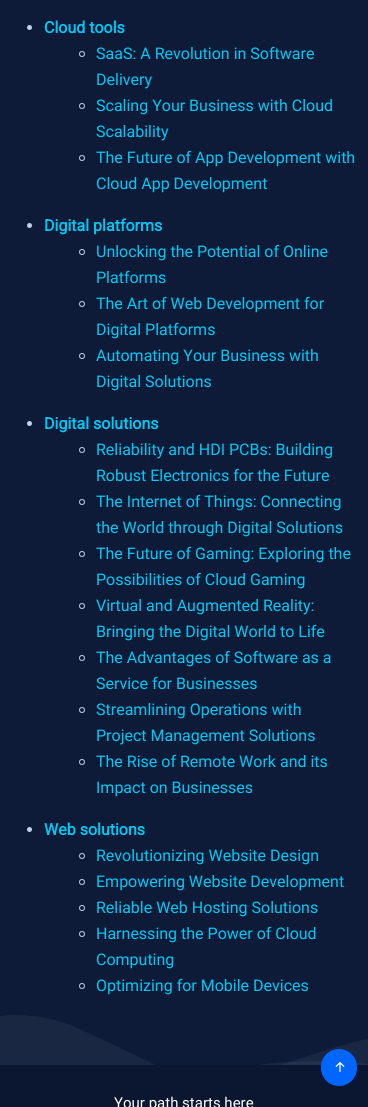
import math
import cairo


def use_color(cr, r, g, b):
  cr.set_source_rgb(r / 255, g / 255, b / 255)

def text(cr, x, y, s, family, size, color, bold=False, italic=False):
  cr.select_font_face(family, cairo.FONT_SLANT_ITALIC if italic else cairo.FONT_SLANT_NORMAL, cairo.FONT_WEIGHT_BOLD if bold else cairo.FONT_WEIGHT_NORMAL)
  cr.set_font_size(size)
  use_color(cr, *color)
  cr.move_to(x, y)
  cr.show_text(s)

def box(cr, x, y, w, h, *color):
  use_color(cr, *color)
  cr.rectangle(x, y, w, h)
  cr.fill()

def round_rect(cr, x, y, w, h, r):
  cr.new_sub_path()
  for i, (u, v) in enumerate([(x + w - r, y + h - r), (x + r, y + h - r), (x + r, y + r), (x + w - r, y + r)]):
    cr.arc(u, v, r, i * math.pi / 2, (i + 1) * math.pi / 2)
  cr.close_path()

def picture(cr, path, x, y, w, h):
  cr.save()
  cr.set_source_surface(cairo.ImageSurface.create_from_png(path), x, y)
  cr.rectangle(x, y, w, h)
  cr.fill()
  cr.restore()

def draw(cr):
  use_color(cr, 14, 27, 56)
  cr.paint()
  use_color(cr, 194, 206, 237)
  cr.arc(29.5, 27.5, 2.5, 0, 2 * math.pi)
  cr.fill()
  cr.arc(82, 54, 2.5, 0, 2 * math.pi)
  cr.set_line_width(1)
  cr.stroke()
  cr.arc(82, 106, 2.5, 0, 2 * math.pi)
  cr.stroke()
  cr.arc(82, 158, 2.5, 0, 2 * math.pi)
  cr.stroke()
  cr.arc(29.5, 225.5, 2.5, 0, 2 * math.pi)
  cr.fill()
  cr.arc(82, 252, 2.5, 0, 2 * math.pi)
  cr.stroke()
  cr.arc(82, 304, 2.5, 0, 2 * math.pi)
  cr.stroke()
  cr.arc(82, 356, 2.5, 0, 2 * math.pi)
  cr.stroke()
  cr.arc(29.5, 423.5, 2.5, 0, 2 * math.pi)
  cr.fill()
  cr.arc(82, 450, 2.5, 0, 2 * math.pi)
  cr.stroke()
  cr.arc(82, 502, 2.5, 0, 2 * math.pi)
  cr.stroke()
  cr.arc(82, 554, 2.5, 0, 2 * math.pi)
  cr.stroke()
  cr.arc(82, 606, 2.5, 0, 2 * math.pi)
  cr.stroke()
  cr.arc(82, 658, 2.5, 0, 2 * math.pi)
  cr.stroke()
  cr.arc(82, 710, 2.5, 0, 2 * math.pi)
  cr.stroke()
  cr.arc(82, 762, 2.5, 0, 2 * math.pi)
  cr.stroke()
  cr.arc(29.5, 829.5, 2.5, 0, 2 * math.pi)
  cr.fill()
  cr.arc(82, 856, 2.5, 0, 2 * math.pi)
  cr.stroke()
  cr.arc(82, 882, 2.5, 0, 2 * math.pi)
  cr.stroke()
  cr.arc(82, 908, 2.5, 0, 2 * math.pi)
  cr.stroke()
  cr.arc(82, 934, 2.5, 0, 2 * math.pi)
  cr.stroke()
  cr.arc(82, 986, 2.5, 0, 2 * math.pi)
  cr.stroke()
  picture(cr, "img_02.png", 0, 1015, 368, 50)
  picture(cr, "img_03.png", 259, 1061, 109, 4)
  box(cr, 0, 1065, 368, 42, 11, 22, 48)
  use_color(cr, 0, 102, 255)
  round_rect(cr, 321, 1049, 36, 37, 18)
  cr.fill()
  picture(cr, "img_01.png", 335, 1062, 10, 10)
  text(cr, 44, 33, "Cloud tools", "Roboto", 16, (1, 201, 245), bold=True)
  text(cr, 96, 59, "SaaS: A Revolution in Software", "Roboto", 16, (1, 201, 245))
  text(cr, 96, 85, "Delivery", "Roboto", 16, (1, 201, 245))
  text(cr, 96, 111, "Scaling Your Business with Cloud", "Roboto", 16, (1, 201, 245))
  text(cr, 96, 137, "Scalability", "Roboto", 16, (1, 201, 245))
  text(cr, 96, 163, "The Future of App Development with", "Roboto", 16, (1, 201, 245))
  text(cr, 96, 189, "Cloud App Development", "Roboto", 16, (1, 201, 245))
  text(cr, 44, 231, "Digital platforms", "Roboto", 16, (1, 201, 245), bold=True)
  text(cr, 96, 257, "Unlocking the Potential of Online", "Roboto", 16, (1, 201, 245))
  text(cr, 96, 283, "Platforms", "Roboto", 16, (1, 201, 245))
  text(cr, 96, 309, "The Art of Web Development for", "Roboto", 16, (1, 201, 245))
  text(cr, 96, 335, "Digital Platforms", "Roboto", 16, (1, 201, 245))
  text(cr, 96, 361, "Automating Your Business with", "Roboto", 16, (1, 201, 245))
  text(cr, 96, 387, "Digital Solutions", "Roboto", 16, (1, 201, 245))
  text(cr, 44, 429, "Digital solutions", "Roboto", 16, (1, 201, 245), bold=True)
  text(cr, 96, 455, "Reliability and HDI PCBs: Building", "Roboto", 16, (1, 201, 245))
  text(cr, 96, 481, "Robust Electronics for the Future", "Roboto", 16, (1, 201, 245))
  text(cr, 96, 507, "The Internet of Things: Connecting", "Roboto", 16, (1, 201, 245))
  text(cr, 96, 533, "the World through Digital Solutions", "Roboto", 16, (1, 201, 245))
  text(cr, 96, 559, "The Future of Gaming: Exploring the", "Roboto", 16, (1, 201, 245))
  text(cr, 96, 585, "Possibilities of Cloud Gaming", "Roboto", 16, (1, 201, 245))
  text(cr, 96, 611, "Virtual and Augmented Reality:", "Roboto", 16, (1, 201, 245))
  text(cr, 96, 637, "Bringing the Digital World to Life", "Roboto", 16, (1, 201, 245))
  text(cr, 96, 663, "The Advantages of Software as a", "Roboto", 16, (1, 201, 245))
  text(cr, 96, 689, "Service for Businesses", "Roboto", 16, (1, 201, 245))
  text(cr, 96, 715, "Streamlining Operations with", "Roboto", 16, (1, 201, 245))
  text(cr, 96, 741, "Project Management Solutions", "Roboto", 16, (1, 201, 245))
  text(cr, 96, 767, "The Rise of Remote Work and its", "Roboto", 16, (1, 201, 245))
  text(cr, 96, 793, "Impact on Businesses", "Roboto", 16, (1, 201, 245))
  text(cr, 44, 835, "Web solutions", "Roboto", 16, (1, 201, 245), bold=True)
  text(cr, 96, 861, "Revolutionizing Website Design", "Roboto", 16, (1, 201, 245))
  text(cr, 96, 887, "Empowering Website Development", "Roboto", 16, (1, 201, 245))
  text(cr, 96, 913, "Reliable Web Hosting Solutions", "Roboto", 16, (1, 201, 245))
  text(cr, 96, 939, "Harnessing the Power of Cloud", "Roboto", 16, (1, 201, 245))
  text(cr, 96, 965, "Computing", "Roboto", 16, (1, 201, 245))
  text(cr, 96, 991, "Optimizing for Mobile Devices", "Roboto", 16, (1, 201, 245))
  text(cr, 114, 1108, "Your path starts here", "Roboto", 15, (255, 255, 255))


surface = cairo.ImageSurface(cairo.FORMAT_RGB24, 368, 1107)
cr = cairo.Context(surface)
options = cairo.FontOptions()
options.set_hint_metrics(cairo.HINT_METRICS_OFF)
options.set_hint_style(cairo.HINT_STYLE_NONE)
cr.set_font_options(options)
cr.set_miter_limit(4)
draw(cr)
surface.write_to_png("out.png")
